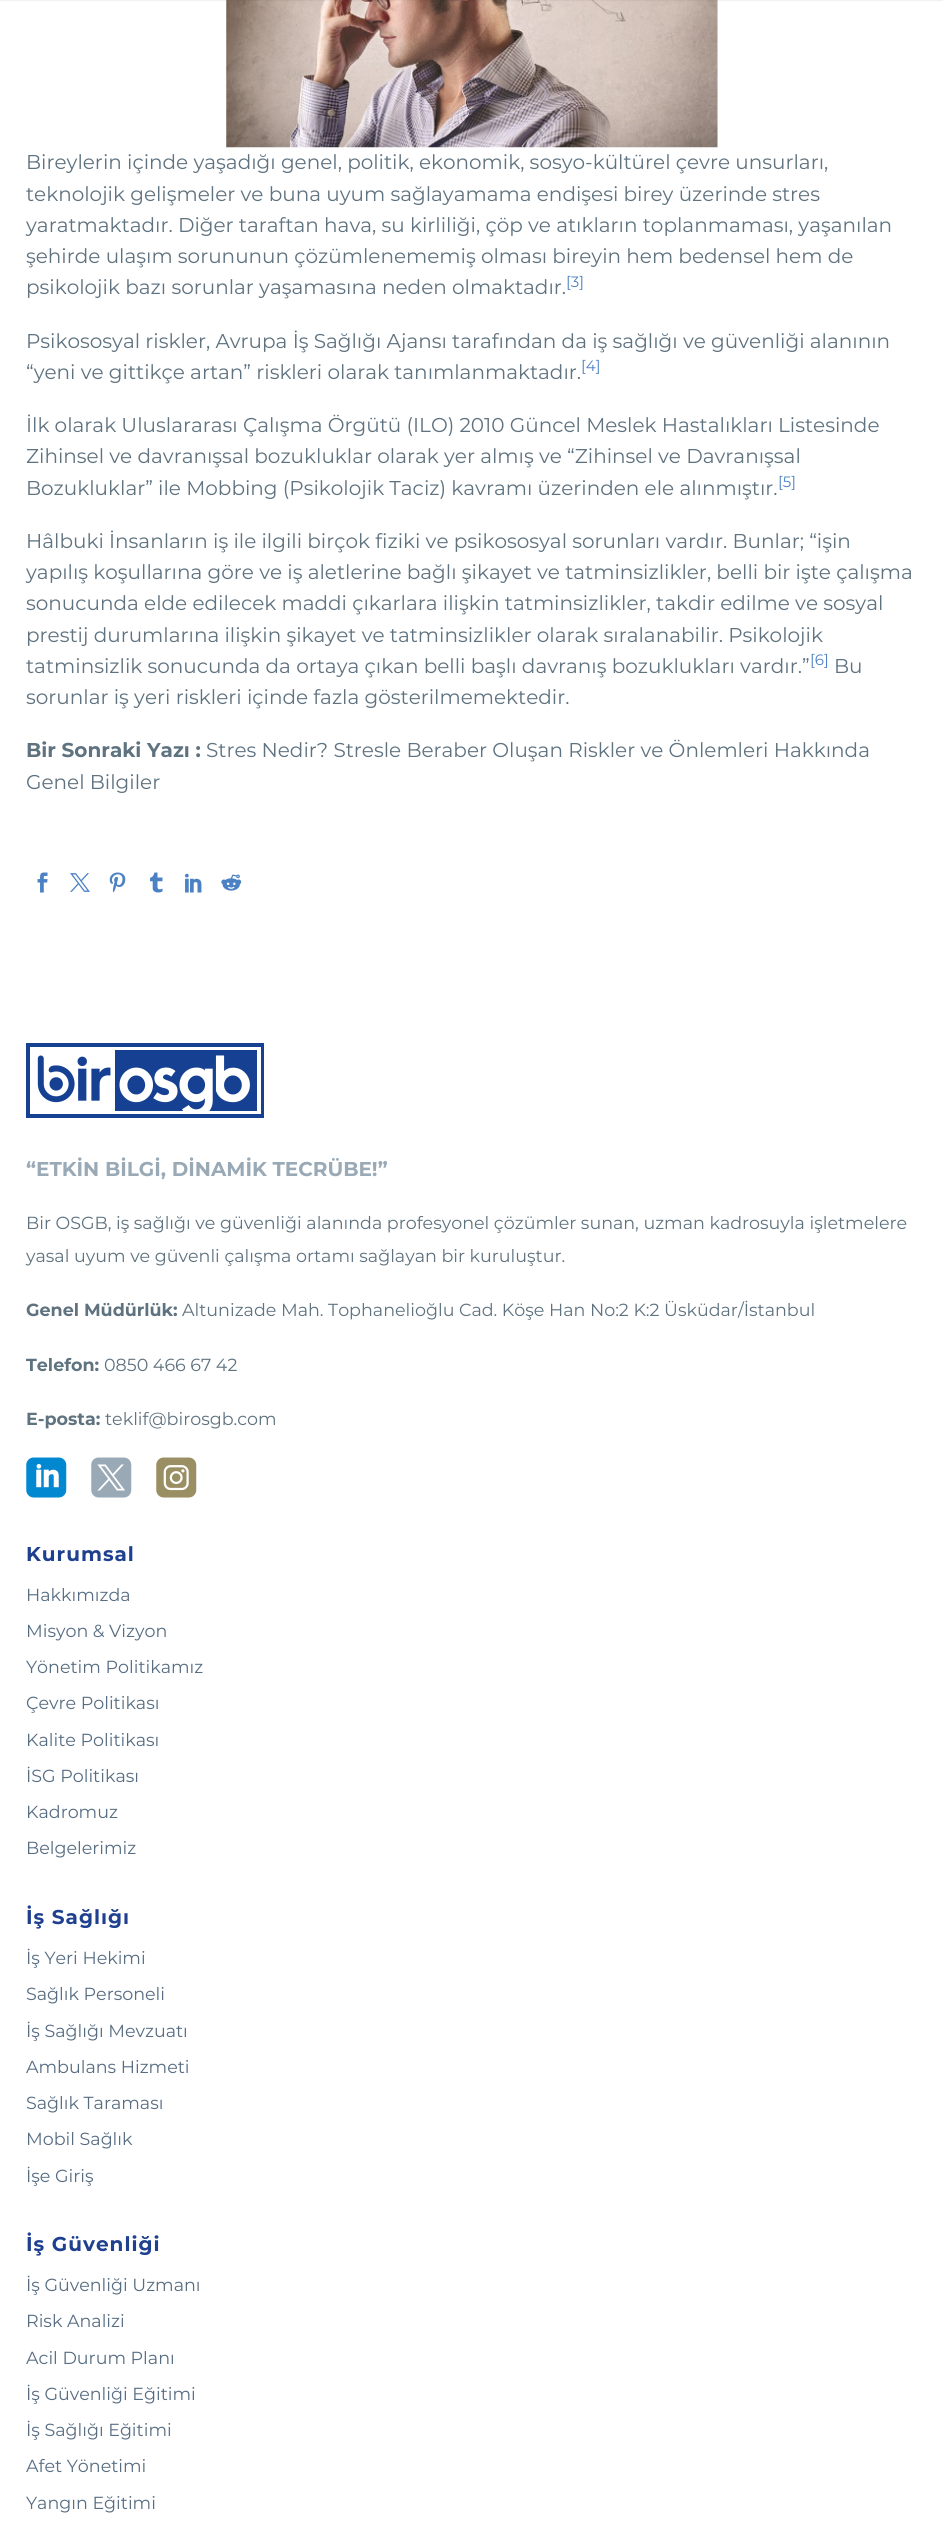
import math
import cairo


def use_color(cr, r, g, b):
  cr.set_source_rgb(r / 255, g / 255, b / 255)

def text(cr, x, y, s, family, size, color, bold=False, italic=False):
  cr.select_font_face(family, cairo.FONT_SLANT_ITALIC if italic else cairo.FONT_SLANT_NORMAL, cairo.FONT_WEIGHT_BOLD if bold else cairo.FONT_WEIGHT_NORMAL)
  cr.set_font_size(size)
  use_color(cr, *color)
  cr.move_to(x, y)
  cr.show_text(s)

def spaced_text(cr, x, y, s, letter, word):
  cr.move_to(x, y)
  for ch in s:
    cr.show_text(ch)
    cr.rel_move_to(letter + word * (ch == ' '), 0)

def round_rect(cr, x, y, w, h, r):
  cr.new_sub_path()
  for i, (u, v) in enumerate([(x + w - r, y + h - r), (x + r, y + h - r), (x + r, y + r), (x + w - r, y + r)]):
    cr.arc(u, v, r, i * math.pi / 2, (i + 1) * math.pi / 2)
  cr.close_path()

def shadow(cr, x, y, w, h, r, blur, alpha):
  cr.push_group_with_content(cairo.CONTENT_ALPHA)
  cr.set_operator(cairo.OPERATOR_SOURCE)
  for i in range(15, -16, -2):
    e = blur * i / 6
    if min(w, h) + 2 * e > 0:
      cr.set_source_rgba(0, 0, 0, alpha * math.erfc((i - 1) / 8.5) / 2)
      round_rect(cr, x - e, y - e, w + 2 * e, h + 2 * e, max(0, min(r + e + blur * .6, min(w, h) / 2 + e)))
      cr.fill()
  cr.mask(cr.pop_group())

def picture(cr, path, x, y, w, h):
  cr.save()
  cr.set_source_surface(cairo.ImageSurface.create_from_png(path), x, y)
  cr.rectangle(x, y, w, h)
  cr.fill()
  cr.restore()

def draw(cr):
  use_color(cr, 255, 255, 255)
  cr.paint()
  picture(cr, "img_01.png", 226, 0, 492, 148)
  use_color(cr, 56, 69, 84)
  shadow(cr, 0, -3, 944, 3, 0, 1, 0.2)
  picture(cr, "img_02.png", 37, 872, 11, 21)
  picture(cr, "img_03.png", 70, 873, 20, 19)
  picture(cr, "img_04.png", 109, 872, 17, 21)
  picture(cr, "img_05.png", 150, 872, 13, 21)
  picture(cr, "img_06.png", 185, 873, 17, 20)
  picture(cr, "img_07.png", 221, 874, 21, 17)
  picture(cr, "img_08.png", 26, 1043, 238, 75)
  picture(cr, "img_09.png", 26, 1457, 41, 41)
  picture(cr, "img_10.png", 91, 1457, 41, 41)
  picture(cr, "img_11.png", 156, 1457, 41, 41)
  text(cr, 26, 169, "Bireylerin içinde yaşadığı genel, politik, ekonomik, sosyo-kültürel çevre unsurları,", "Montserrat", 20, (95, 114, 127))
  text(cr, 26, 201, "teknolojik gelişmeler ve buna uyum sağlayamama endişesi birey üzerinde stres", "Montserrat", 20, (95, 114, 127))
  text(cr, 26, 232, "yaratmaktadır. Diğer taraftan hava, su kirliliği, çöp ve atıkların toplanmaması, yaşanılan", "Montserrat", 20, (95, 114, 127))
  text(cr, 26, 263, "şehirde ulaşım sorununun çözümlenememiş olması bireyin hem bedensel hem de", "Montserrat", 20, (95, 114, 127))
  text(cr, 26, 294, "psikolojik bazı sorunlar yaşamasına neden olmaktadır.", "Montserrat", 20, (95, 114, 127))
  text(cr, 566, 287, "[3]", "Montserrat", 15, (76, 130, 195))
  text(cr, 26, 348, "Psikososyal riskler, Avrupa İş Sağlığı Ajansı tarafından da iş sağlığı ve güvenliği alanının", "Montserrat", 20, (95, 114, 127))
  text(cr, 26, 379, "“yeni ve gittikçe artan” riskleri olarak tanımlanmaktadır.", "Montserrat", 20, (95, 114, 127))
  text(cr, 581, 371, "[4]", "Montserrat", 15, (76, 130, 195))
  text(cr, 26, 432, "İlk olarak Uluslararası Çalışma Örgütü (ILO) 2010 Güncel Meslek Hastalıkları Listesinde", "Montserrat", 20, (95, 114, 127))
  text(cr, 26, 463, "Zihinsel ve davranışsal bozukluklar olarak yer almış ve “Zihinsel ve Davranışsal", "Montserrat", 20, (95, 114, 127))
  text(cr, 26, 495, "Bozukluklar” ile Mobbing (Psikolojik Taciz) kavramı üzerinden ele alınmıştır.", "Montserrat", 20, (95, 114, 127))
  text(cr, 778, 487, "[5]", "Montserrat", 15, (76, 130, 195))
  text(cr, 26, 548, "Hâlbuki İnsanların iş ile ilgili birçok fiziki ve psikososyal sorunları vardır. Bunlar; “işin", "Montserrat", 20, (95, 114, 127))
  text(cr, 26, 579, "yapılış koşullarına göre ve iş aletlerine bağlı şikayet ve tatminsizlikler, belli bir işte çalışma", "Montserrat", 20, (95, 114, 127))
  text(cr, 26, 610, "sonucunda elde edilecek maddi çıkarlara ilişkin tatminsizlikler, takdir edilme ve sosyal", "Montserrat", 20, (95, 114, 127))
  text(cr, 26, 642, "prestij durumlarına ilişkin şikayet ve tatminsizlikler olarak sıralanabilir. Psikolojik", "Montserrat", 20, (95, 114, 127))
  text(cr, 26, 673, "tatminsizlik sonucunda da ortaya çıkan belli başlı davranış bozuklukları vardır.”", "Montserrat", 20, (95, 114, 127))
  text(cr, 810, 665, "[6]", "Montserrat", 15, (76, 130, 195))
  text(cr, 834, 673, "Bu", "Montserrat", 20, (95, 114, 127))
  text(cr, 26, 704, "sorunlar iş yeri riskleri içinde fazla gösterilmemektedir.", "Montserrat", 20, (95, 114, 127))
  text(cr, 26, 757, "Bir Sonraki Yazı :", "Montserrat", 20, (95, 114, 127), bold=True)
  text(cr, 206, 757, "Stres Nedir? Stresle Beraber Oluşan Riskler ve Önlemleri Hakkında", "Montserrat", 20, (95, 114, 127))
  text(cr, 26, 789, "Genel Bilgiler", "Montserrat", 20, (95, 114, 127))
  text(cr, 26, 1176, "“ETKİN BİLGİ, DİNAMİK TECRÜBE!”", "Montserrat", 20, (153, 169, 181), bold=True)
  text(cr, 26, 1229, "Bir OSGB, iş sağlığı ve güvenliği alanında profesyonel çözümler sunan, uzman kadrosuyla işletmelere", "Montserrat", 17.5, (95, 114, 127))
  text(cr, 26, 1262, "yasal uyum ve güvenli çalışma ortamı sağlayan bir kuruluştur.", "Montserrat", 17.5, (95, 114, 127))
  text(cr, 26, 1316, "Genel Müdürlük:", "Montserrat", 17.5, (95, 114, 127), bold=True)
  text(cr, 182, 1316, "Altunizade Mah. Tophanelioğlu Cad. Köşe Han No:2 K:2 Üsküdar/İstanbul", "Montserrat", 17.5, (95, 114, 127))
  text(cr, 26, 1371, "Telefon:", "Montserrat", 17.5, (95, 114, 127), bold=True)
  text(cr, 104, 1371, "0850 466 67 42", "Montserrat", 17.5, (95, 114, 127))
  text(cr, 26, 1425, "E-posta:", "Montserrat", 17.5, (95, 114, 127), bold=True)
  text(cr, 105, 1425, "teklif@birosgb.com", "Montserrat", 17.5, (95, 114, 127))
  cr.select_font_face("Montserrat", cairo.FONT_SLANT_NORMAL, cairo.FONT_WEIGHT_BOLD)
  cr.set_font_size(20)
  use_color(cr, 30, 64, 143)
  spaced_text(cr, 26, 1561, "Kurumsal", 1, 0)
  text(cr, 26, 1601, "Hakkımızda", "Montserrat", 17.5, (87, 109, 130))
  text(cr, 26, 1637, "Misyon & Vizyon", "Montserrat", 17.5, (87, 109, 130))
  text(cr, 26, 1673, "Yönetim Politikamız", "Montserrat", 17.5, (87, 109, 130))
  text(cr, 26, 1709, "Çevre Politikası", "Montserrat", 17.5, (87, 109, 130))
  text(cr, 26, 1746, "Kalite Politikası", "Montserrat", 17.5, (87, 109, 130))
  text(cr, 26, 1782, "İSG Politikası", "Montserrat", 17.5, (87, 109, 130))
  text(cr, 26, 1818, "Kadromuz", "Montserrat", 17.5, (87, 109, 130))
  text(cr, 26, 1854, "Belgelerimiz", "Montserrat", 17.5, (87, 109, 130))
  cr.select_font_face("Montserrat", cairo.FONT_SLANT_NORMAL, cairo.FONT_WEIGHT_BOLD)
  cr.set_font_size(20)
  use_color(cr, 30, 64, 143)
  spaced_text(cr, 26, 1924, "İş Sağlığı", 1, 0)
  text(cr, 26, 1964, "İş Yeri Hekimi", "Montserrat", 17.5, (87, 109, 130))
  text(cr, 26, 2000, "Sağlık Personeli", "Montserrat", 17.5, (87, 109, 130))
  text(cr, 26, 2037, "İş Sağlığı Mevzuatı", "Montserrat", 17.5, (87, 109, 130))
  text(cr, 26, 2073, "Ambulans Hizmeti", "Montserrat", 17.5, (87, 109, 130))
  text(cr, 26, 2109, "Sağlık Taraması", "Montserrat", 17.5, (87, 109, 130))
  text(cr, 26, 2145, "Mobil Sağlık", "Montserrat", 17.5, (87, 109, 130))
  text(cr, 26, 2182, "İşe Giriş", "Montserrat", 17.5, (87, 109, 130))
  cr.select_font_face("Montserrat", cairo.FONT_SLANT_NORMAL, cairo.FONT_WEIGHT_BOLD)
  cr.set_font_size(20)
  use_color(cr, 30, 64, 143)
  spaced_text(cr, 26, 2251, "İş Güvenliği", 1, 0)
  text(cr, 26, 2291, "İş Güvenliği Uzmanı", "Montserrat", 17.5, (87, 109, 130))
  text(cr, 26, 2327, "Risk Analizi", "Montserrat", 17.5, (87, 109, 130))
  text(cr, 26, 2364, "Acil Durum Planı", "Montserrat", 17.5, (87, 109, 130))
  text(cr, 26, 2400, "İş Güvenliği Eğitimi", "Montserrat", 17.5, (87, 109, 130))
  text(cr, 26, 2436, "İş Sağlığı Eğitimi", "Montserrat", 17.5, (87, 109, 130))
  text(cr, 26, 2472, "Afet Yönetimi", "Montserrat", 17.5, (87, 109, 130))
  text(cr, 26, 2509, "Yangın Eğitimi", "Montserrat", 17.5, (87, 109, 130))


surface = cairo.ImageSurface(cairo.FORMAT_RGB24, 943, 2536)
cr = cairo.Context(surface)
options = cairo.FontOptions()
options.set_hint_metrics(cairo.HINT_METRICS_OFF)
options.set_hint_style(cairo.HINT_STYLE_NONE)
cr.set_font_options(options)
cr.set_miter_limit(4)
draw(cr)
surface.write_to_png("out.png")
